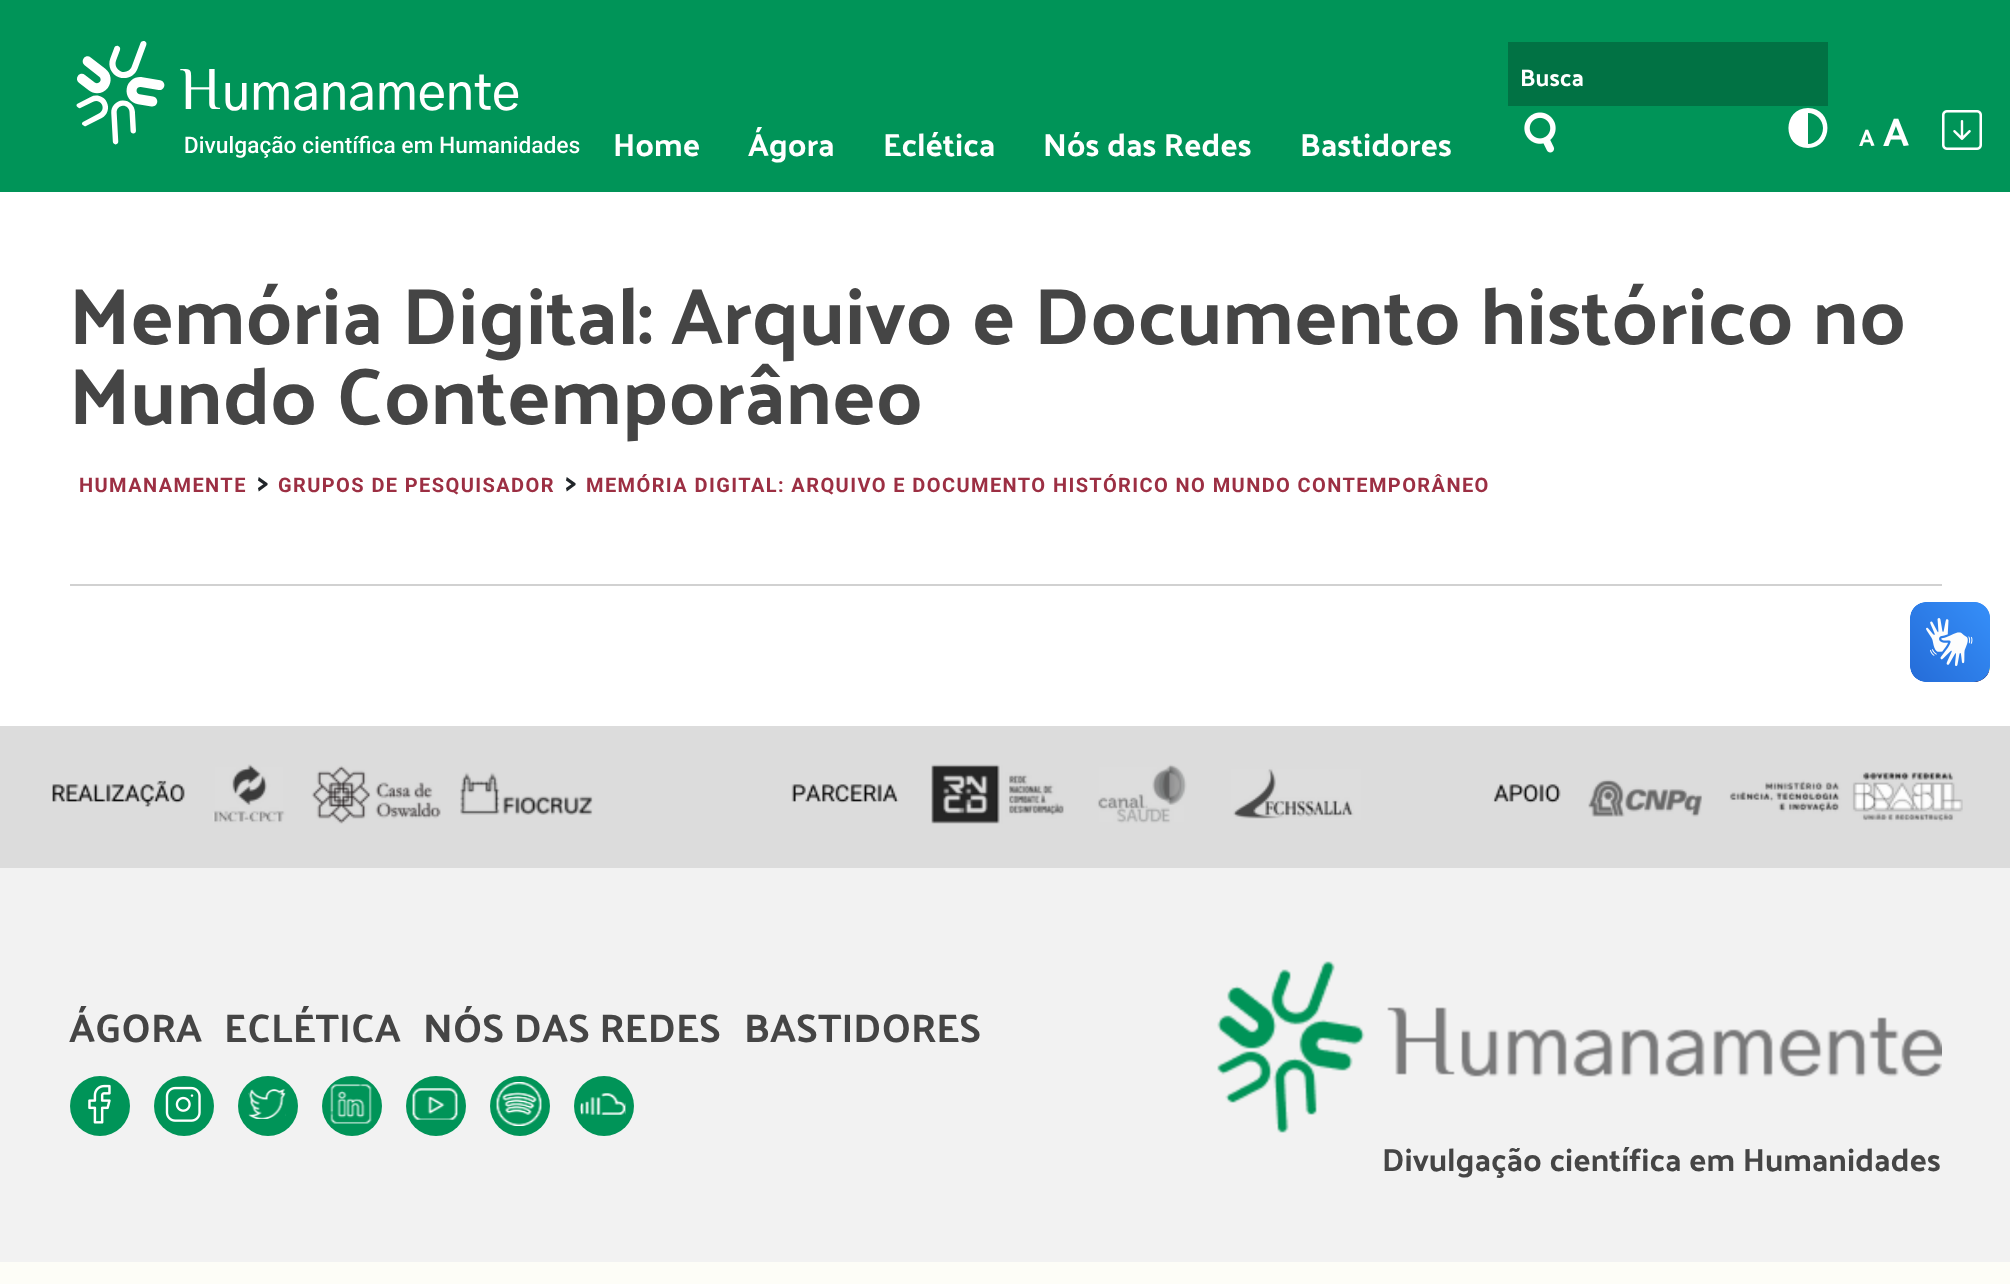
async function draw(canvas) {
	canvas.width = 2010;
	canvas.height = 1284;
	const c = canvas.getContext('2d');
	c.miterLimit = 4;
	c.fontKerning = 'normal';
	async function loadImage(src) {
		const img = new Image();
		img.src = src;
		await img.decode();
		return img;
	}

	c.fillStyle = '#fdfdf7';
	c.fillRect(0, 0, 2010, 1284);
	c.fillStyle = '#009458';
	c.fillRect(0, 0, 2010, 192);
	c.drawImage(await loadImage('img1.png'), 76, 41, 504, 117);
	c.font = '32px Palanquin Dark';
	c.fillStyle = '#fff';
	for (const [text, x, y] of [
		['Home', 613, 156],
		['Ágora', 748, 156],
		['Eclética', 883, 156],
		['Nós das Redes', 1043, 156],
		['Bastidores', 1300, 156],
	]) {
		c.fillText(text, x, y);
	}
	c.fillStyle = '#017244';
	c.fillRect(1508, 42, 320, 64);
	c.font = '24px Palanquin Dark';
	c.fillStyle = '#fff';
	c.fillText('Busca', 1520, 86);
	c.drawImage(await loadImage('img2.png'), 1524, 112, 32, 41);
	c.beginPath();
	c.moveTo(1808, 148);
	c.bezierCurveTo(1782, 148, 1782, 108, 1808, 108);
	c.bezierCurveTo(1834, 108, 1834, 148, 1808, 148);
	c.closePath();
	c.moveTo(1823, 128);
	c.bezierCurveTo(1823, 120, 1816, 113, 1808, 113);
	c.lineTo(1808, 144);
	c.bezierCurveTo(1816, 144, 1823, 137, 1823, 128);
	c.closePath();
	c.fill();
	c.fillText('A', 1859, 146);
	c.font = '40px Palanquin Dark';
	c.fillText('A', 1883, 146);
	c.drawImage(await loadImage('img3.png'), 1942, 110, 40, 40);
	c.fillRect(0, 192, 2010, 534);
	c.font = '80px Palanquin Dark';
	c.fillStyle = '#454545';
	c.fillText('Memória Digital: Arquivo e Documento histórico no', 69, 344);
	c.fillText('Mundo Contemporâneo', 69, 424);
	c.letterSpacing = '1.4px';
	c.font = 'bold 20px Roboto';
	c.fillStyle = '#9c2f43';
	c.fillText('HUMANAMENTE', 79, 492);
	c.letterSpacing = '0px';
	c.font = '32px Palanquin Dark';
	c.fillStyle = '#212529';
	c.fillText('>', 257, 492);
	c.letterSpacing = '1.4px';
	c.font = 'bold 20px Roboto';
	c.fillStyle = '#9c2f43';
	c.fillText('GRUPOS DE PESQUISADOR', 278, 492);
	c.letterSpacing = '0px';
	c.font = '32px Palanquin Dark';
	c.fillStyle = '#212529';
	c.fillText('>', 565, 492);
	c.letterSpacing = '1.4px';
	c.font = 'bold 20px Roboto';
	c.fillStyle = '#9c2f43';
	c.fillText('MEMÓRIA DIGITAL: ARQUIVO E DOCUMENTO HISTÓRICO NO MUNDO CONTEMPORÂNEO', 586, 492);
	c.fillStyle = '#d1d1d1';
	c.fillRect(70, 584, 1872, 2);
	c.drawImage(await loadImage('img4.png'), 1910, 602, 80, 80);
	c.drawImage(await loadImage('img5.png'), 1910, 602, 80, 80);
	c.fillStyle = '#dcdcdc';
	c.fillRect(0, 726, 2010, 142);
	c.drawImage(await loadImage('img6.png'), 52, 764, 1911, 60);
	c.fillStyle = '#f2f2f2';
	c.fillRect(0, 868, 2010, 394);
	c.letterSpacing = '0px';
	c.font = '40px Palanquin Dark';
	c.fillStyle = '#454545';
	for (const [text, x, y] of [
		['ÁGORA', 69, 1042],
		['ECLÉTICA', 224, 1042],
		['NÓS DAS REDES', 423, 1042],
		['BASTIDORES', 744, 1042],
	]) {
		c.fillText(text, x, y);
	}
	c.fillStyle = '#009458';
	c.beginPath();
	c.arc(100, 1106, 30, 0, 2 * Math.PI);
	c.fill();
	c.drawImage(await loadImage('img7.png'), 88, 1084, 23, 40);
	c.beginPath();
	c.arc(184, 1106, 30, 0, 2 * Math.PI);
	c.fill();
	c.drawImage(await loadImage('img8.png'), 165, 1086, 36, 36);
	c.beginPath();
	c.arc(268, 1106, 30, 0, 2 * Math.PI);
	c.fill();
	c.drawImage(await loadImage('img9.png'), 248, 1089, 38, 30);
	c.beginPath();
	c.arc(352, 1106, 30, 0, 2 * Math.PI);
	c.fill();
	c.drawImage(await loadImage('img10.png'), 330, 1084, 42, 40);
	c.beginPath();
	c.arc(436, 1106, 30, 0, 2 * Math.PI);
	c.fill();
	c.drawImage(await loadImage('img11.png'), 412, 1088, 46, 32);
	c.beginPath();
	c.arc(520, 1106, 30, 0, 2 * Math.PI);
	c.fill();
	c.drawImage(await loadImage('img12.png'), 496, 1082, 46, 44);
	c.beginPath();
	c.arc(604, 1106, 30, 0, 2 * Math.PI);
	c.fill();
	c.drawImage(await loadImage('img13.png'), 580, 1093, 46, 22);
	c.drawImage(await loadImage('img14.png'), 1217, 961, 725, 172);
	c.font = '32px Palanquin Dark';
	c.fillStyle = '#454545';
	c.fillText('Divulgação científica em Humanidades', 1382, 1171);
}

draw(document.querySelector('canvas'));
